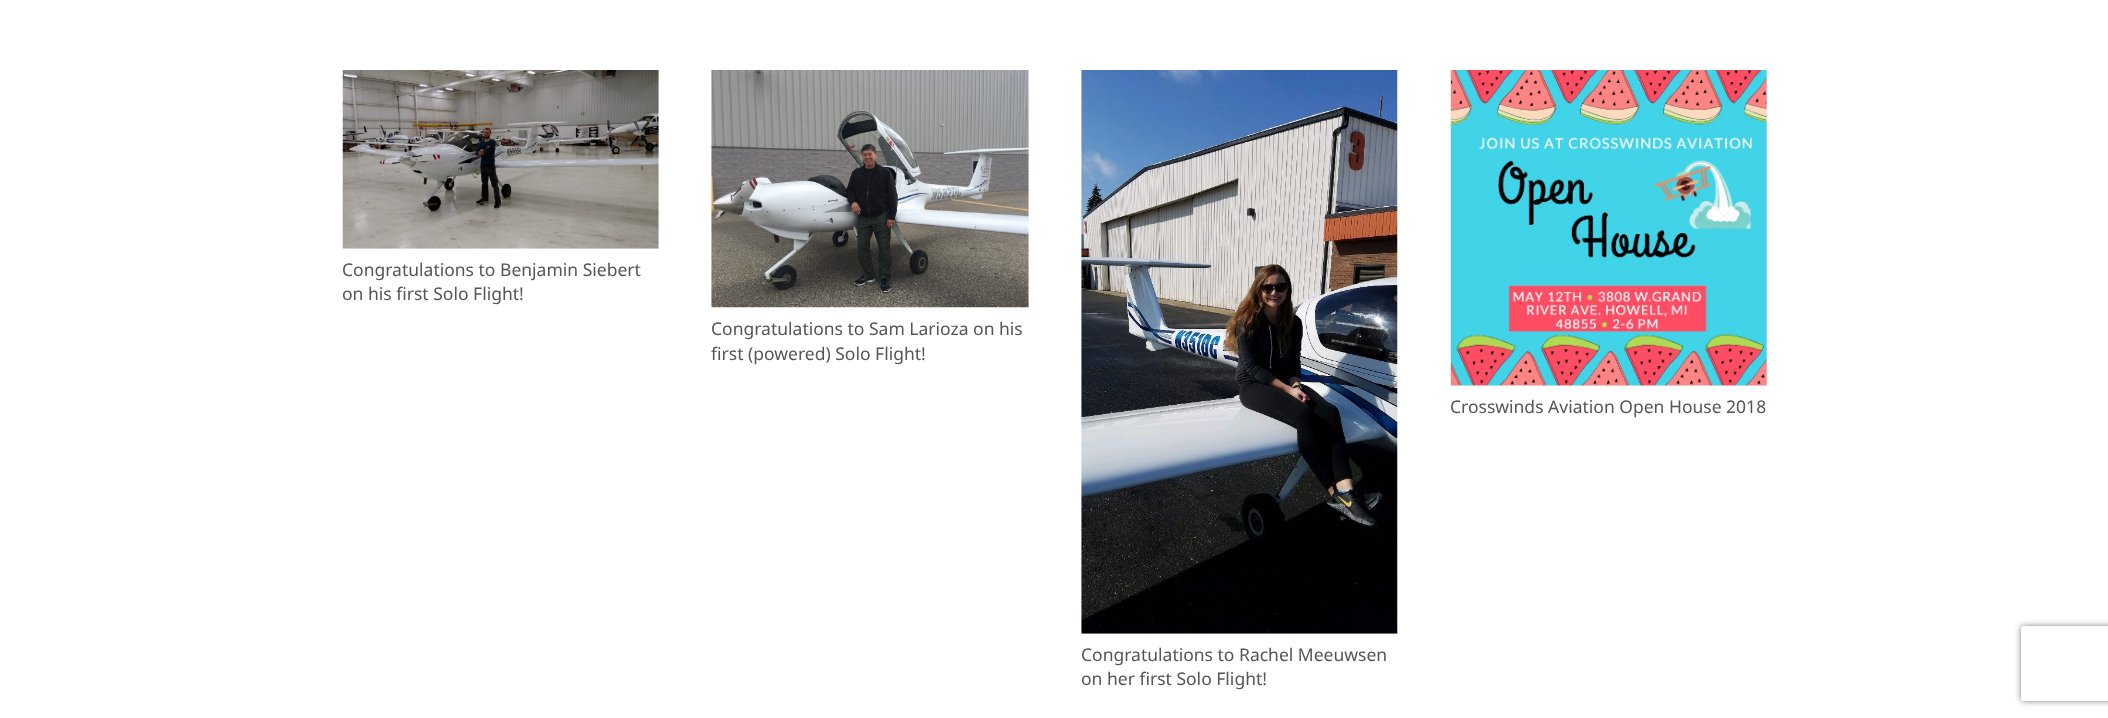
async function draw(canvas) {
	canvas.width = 2108;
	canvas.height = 718;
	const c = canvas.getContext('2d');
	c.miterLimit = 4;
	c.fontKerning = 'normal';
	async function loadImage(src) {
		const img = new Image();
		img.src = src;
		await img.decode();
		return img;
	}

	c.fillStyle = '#fff';
	c.fillRect(0, 0, 2108, 718);
	c.drawImage(await loadImage('img1.png'), 342, 70, 317, 179);
	c.font = '17.5px Noto Sans';
	c.fillStyle = '#555';
	c.fillText('Congratulations to Benjamin Siebert', 342, 276);
	c.fillText('on his first Solo Flight!', 342, 300);
	c.drawImage(await loadImage('img2.png'), 711, 70, 318, 238);
	c.fillText('Congratulations to Sam Larioza on his', 711, 335);
	c.fillText('first (powered) Solo Flight!', 711, 360);
	c.drawImage(await loadImage('img3.png'), 1450, 70, 318, 316);
	c.fillText('Crosswinds Aviation Open House 2018', 1450, 413);
	c.drawImage(await loadImage('img4.png'), 1081, 70, 317, 564);
	c.fillText('Congratulations to Rachel Meeuwsen', 1081, 661);
	c.fillText('on her first Solo Flight!', 1081, 685);
	c.save();
	c.beginPath();
	c.moveTo(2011, 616);
	c.lineTo(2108, 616);
	c.lineTo(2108, 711);
	c.lineTo(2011, 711);
	c.closePath();
	c.moveTo(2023.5, 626);
	c.lineTo(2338.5, 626);
	c.bezierCurveTo(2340, 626, 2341, 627, 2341, 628.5);
	c.lineTo(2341, 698.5);
	c.bezierCurveTo(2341, 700, 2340, 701, 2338.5, 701);
	c.lineTo(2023.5, 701);
	c.bezierCurveTo(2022, 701, 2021, 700, 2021, 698.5);
	c.lineTo(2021, 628.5);
	c.bezierCurveTo(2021, 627, 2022, 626, 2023.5, 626);
	c.closePath();
	c.clip('evenodd');
	c.fillStyle = '#808080';
	c.filter = 'blur(3px)';
	c.beginPath();
	c.roundRect(2021, 626, 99, 75, 2.5);
	c.fill();
	c.filter = 'none';
	c.restore();
}

draw(document.querySelector('canvas'));
